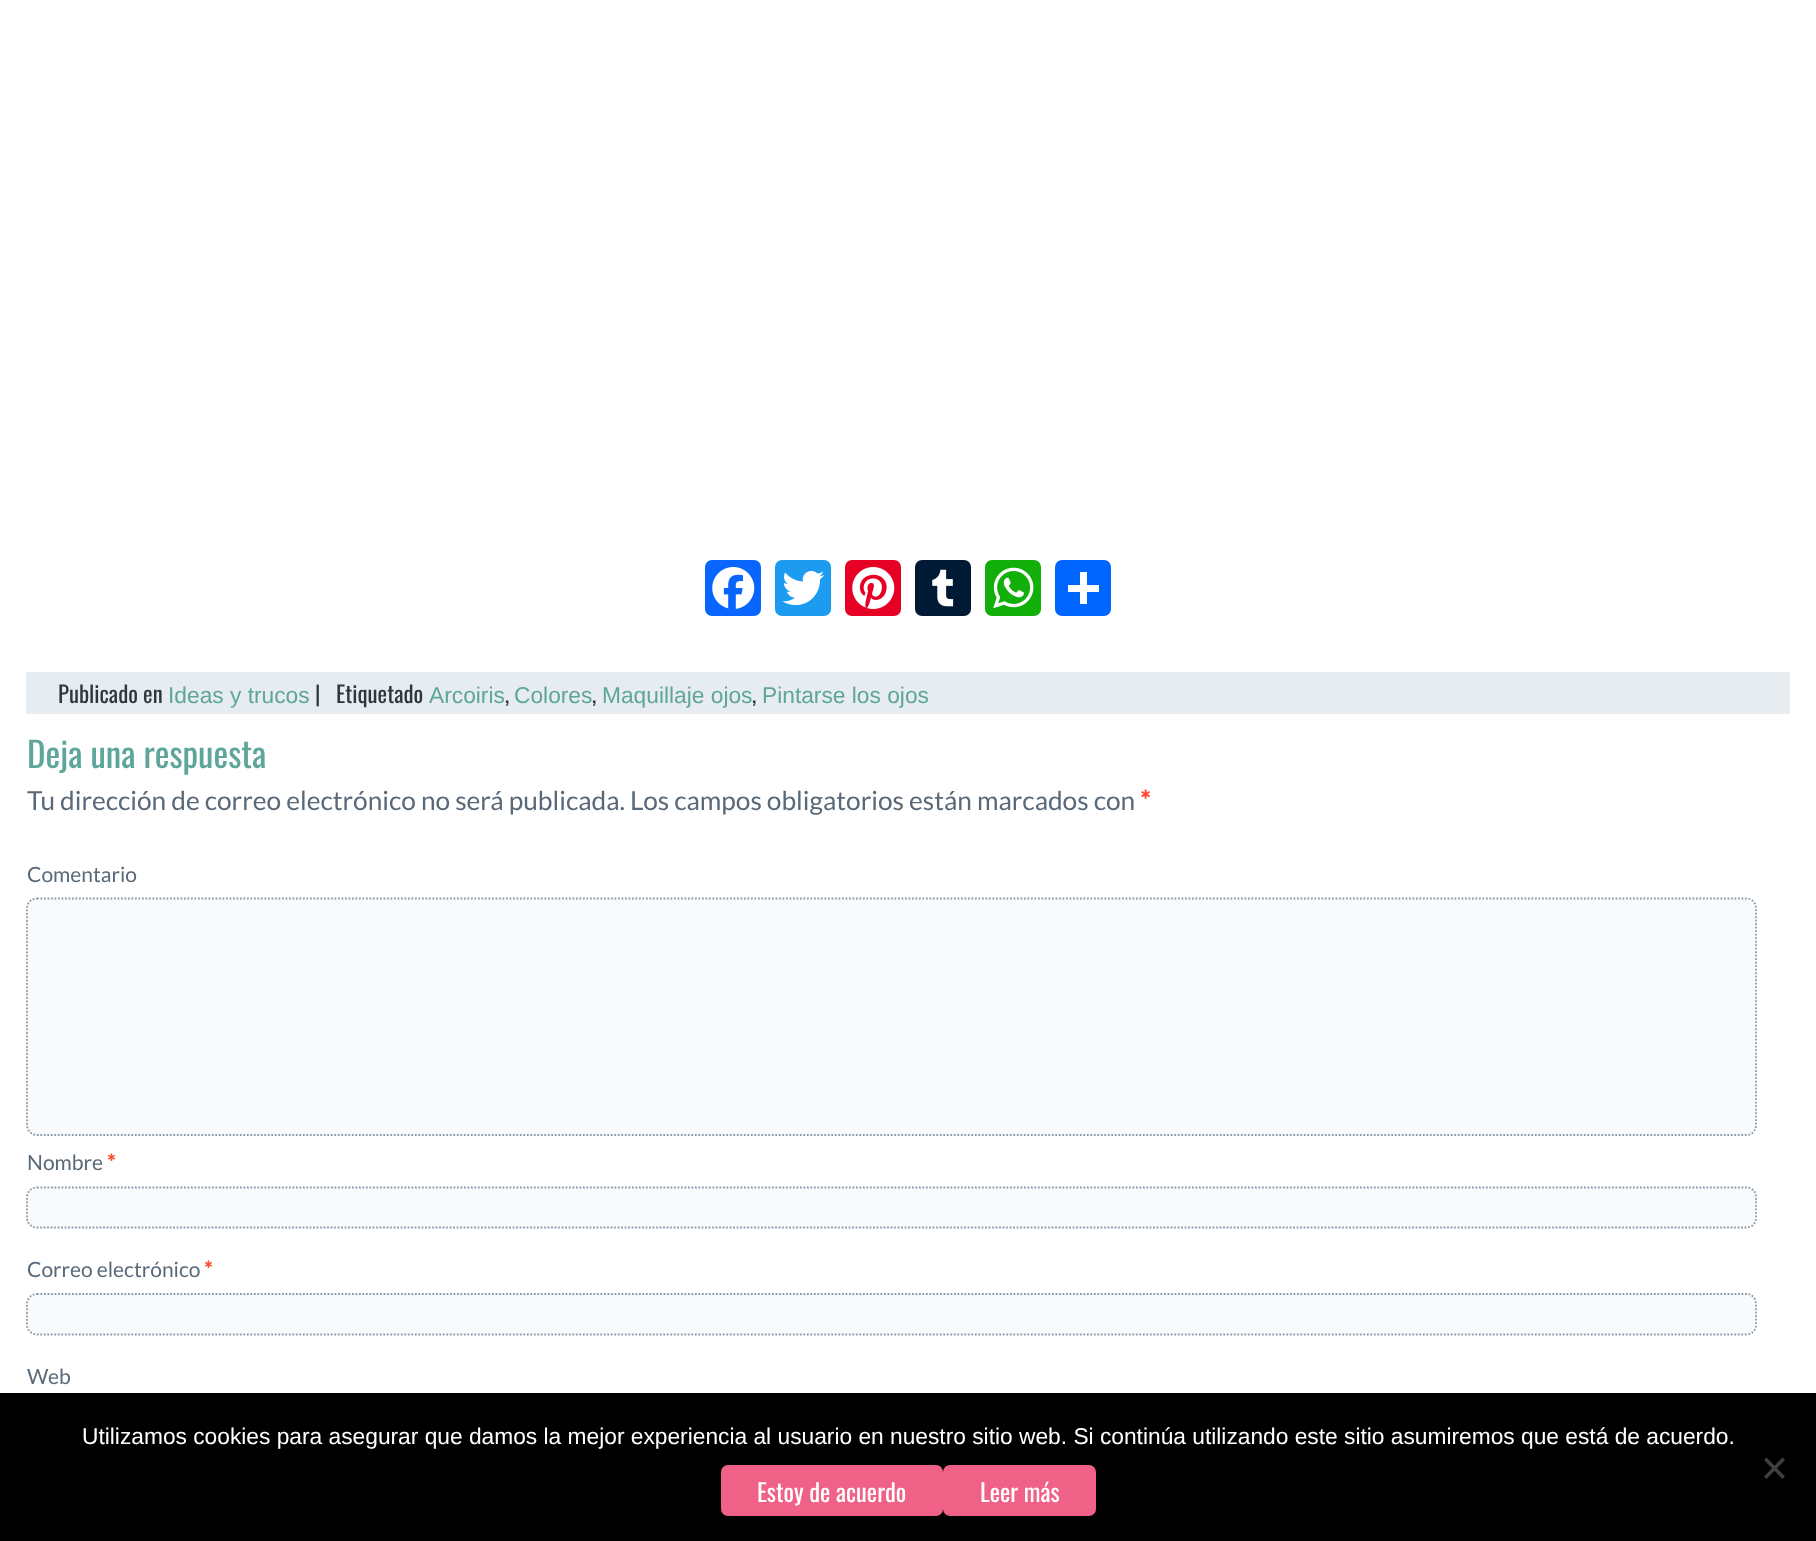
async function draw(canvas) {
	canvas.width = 1816;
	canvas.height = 1541;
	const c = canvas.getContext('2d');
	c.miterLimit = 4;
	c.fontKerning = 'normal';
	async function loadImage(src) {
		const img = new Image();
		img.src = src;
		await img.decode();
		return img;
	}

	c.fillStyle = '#fff';
	c.fillRect(0, 0, 1816, 1541);
	c.fillStyle = '#0866ff';
	c.beginPath();
	c.roundRect(705, 560, 56, 56, 7);
	c.fill();
	c.drawImage(await loadImage('img1.png'), 712, 567, 43, 42);
	c.fillStyle = '#1d9bf0';
	c.beginPath();
	c.roundRect(775, 560, 56, 56, 7);
	c.fill();
	c.drawImage(await loadImage('img2.png'), 782, 570, 43, 36);
	c.fillStyle = '#e60023';
	c.beginPath();
	c.roundRect(845, 560, 56, 56, 7);
	c.fill();
	c.drawImage(await loadImage('img3.png'), 852, 567, 43, 42);
	c.fillStyle = '#001935';
	c.beginPath();
	c.roundRect(915, 560, 56, 56, 7);
	c.fill();
	c.drawImage(await loadImage('img4.png'), 932, 569, 22, 38);
	c.fillStyle = '#12af0a';
	c.beginPath();
	c.roundRect(985, 560, 56, 56, 7);
	c.fill();
	c.drawImage(await loadImage('img5.png'), 993, 567, 41, 42);
	c.fillStyle = '#0166ff';
	c.beginPath();
	c.roundRect(1055, 560, 56, 56, 7);
	c.fill();
	for (const [x, y, w, h, color] of [
		[1080, 572, 7, 32, '#fff'],
		[1068, 585, 31, 7, '#fff'],
		[26, 672, 1764, 42, '#e7ecf1'],
	]) {
		c.fillStyle = color;
		c.fillRect(x, y, w, h);
	}
	c.font = '22.75px Oswald';
	c.fillStyle = '#2e363e';
	c.fillText('Publicado en', 58, 703);
	c.font = '22.75px Liberation Sans';
	c.fillStyle = '#5ea69a';
	c.fillText('Ideas y trucos', 168, 703);
	c.font = '22.75px Oswald';
	c.fillStyle = '#2e363e';
	c.fillText('|', 315, 703);
	c.fillText('Etiquetado', 336, 703);
	c.font = '22.75px Liberation Sans';
	c.fillStyle = '#5ea69a';
	c.fillText('Arcoiris', 429, 703);
	c.font = '22.75px Oswald';
	c.fillStyle = '#2e363e';
	c.fillText(',', 505, 703);
	c.font = '22.75px Liberation Sans';
	c.fillStyle = '#5ea69a';
	c.fillText('Colores', 514, 703);
	c.font = '22.75px Oswald';
	c.fillStyle = '#2e363e';
	c.fillText(',', 592, 703);
	c.font = '22.75px Liberation Sans';
	c.fillStyle = '#5ea69a';
	c.fillText('Maquillaje ojos', 602, 703);
	c.font = '22.75px Oswald';
	c.fillStyle = '#2e363e';
	c.fillText(',', 752, 703);
	c.font = '22.75px Liberation Sans';
	c.fillStyle = '#5ea69a';
	c.fillText('Pintarse los ojos', 762, 703);
	c.font = '35px Oswald';
	c.fillText('Deja una respuesta', 27, 768);
	c.font = '26.25px Lato';
	c.fillStyle = '#596978';
	c.fillText('Tu dirección de correo electrónico no será publicada. Los campos obligatorios están marcados con', 27, 810);
	c.font = 'bold 26.25px Lato';
	c.fillStyle = '#ff4b33';
	c.fillText('*', 1140, 810);
	c.font = '21px Lato';
	c.fillStyle = '#596978';
	c.fillText('Comentario', 27, 882);
	c.fillStyle = '#f9fafb';
	c.beginPath();
	c.roundRect(26, 898, 1731, 238, 11);
	c.fill();
	c.beginPath();
	c.moveTo(37, 898.5);
	c.lineTo(1746.5, 898.5);
	c.bezierCurveTo(1752, 898.5, 1756, 903, 1756, 908);
	c.lineTo(1756, 1125);
	c.bezierCurveTo(1756, 1130.5, 1752, 1135, 1746.5, 1135);
	c.lineTo(37, 1135);
	c.bezierCurveTo(31.5, 1135, 27, 1130.5, 27, 1125);
	c.lineTo(27, 908);
	c.bezierCurveTo(27, 903, 31.5, 898.5, 37, 898.5);
	c.closePath();
	c.strokeStyle = '#8a99a8';
	c.lineWidth = 1.8;
	c.setLineDash([1.75, 1.75]);
	c.stroke();
	c.fillStyle = '#596978';
	c.fillText('Nombre', 27, 1170);
	c.font = 'bold 21px Lato';
	c.fillStyle = '#ff4b33';
	c.fillText('*', 107, 1170);
	c.fillStyle = '#f9fafb';
	c.beginPath();
	c.roundRect(26, 1187, 1731, 42, 11);
	c.fill();
	c.beginPath();
	c.moveTo(37, 1187.5);
	c.lineTo(1746.5, 1187.5);
	c.bezierCurveTo(1752, 1187.5, 1756, 1191.5, 1756, 1197);
	c.lineTo(1756, 1218);
	c.bezierCurveTo(1756, 1223.5, 1752, 1227.5, 1746.5, 1227.5);
	c.lineTo(37, 1227.5);
	c.bezierCurveTo(31.5, 1227.5, 27, 1223.5, 27, 1218);
	c.lineTo(27, 1197);
	c.bezierCurveTo(27, 1191.5, 31.5, 1187.5, 37, 1187.5);
	c.closePath();
	c.stroke();
	c.font = '21px Lato';
	c.fillStyle = '#596978';
	c.fillText('Correo electrónico', 27, 1277);
	c.font = 'bold 21px Lato';
	c.fillStyle = '#ff4b33';
	c.fillText('*', 204, 1277);
	c.fillStyle = '#f9fafb';
	c.beginPath();
	c.roundRect(26, 1293, 1731, 42, 11);
	c.fill();
	c.beginPath();
	c.moveTo(37, 1294);
	c.lineTo(1746.5, 1294);
	c.bezierCurveTo(1752, 1294, 1756, 1298.5, 1756, 1304);
	c.lineTo(1756, 1325);
	c.bezierCurveTo(1756, 1330, 1752, 1334.5, 1746.5, 1334.5);
	c.lineTo(37, 1334.5);
	c.bezierCurveTo(31.5, 1334.5, 27, 1330, 27, 1325);
	c.lineTo(27, 1304);
	c.bezierCurveTo(27, 1298.5, 31.5, 1294, 37, 1294);
	c.closePath();
	c.stroke();
	c.font = '21px Lato';
	c.fillStyle = '#596978';
	c.fillText('Web', 27, 1384);
	c.fillStyle = '#000';
	c.fillRect(0, 1393, 1816, 148);
	c.font = '22.75px Liberation Sans';
	c.fillStyle = '#fff';
	c.fillText('Utilizamos cookies para asegurar que damos la mejor experiencia al usuario en nuestro sitio web. Si continúa utilizando este sitio asumiremos que está de acuerdo.', 82, 1444);
	c.fillStyle = '#404040';
	c.beginPath();
	c.moveTo(1782.5, 1457.5);
	c.lineTo(1785, 1460);
	c.lineTo(1766.5, 1479);
	c.lineTo(1764, 1476.5);
	c.closePath();
	c.fill();
	c.beginPath();
	c.moveTo(1764, 1460);
	c.lineTo(1766.5, 1457.5);
	c.lineTo(1785, 1476.5);
	c.lineTo(1782.5, 1479);
	c.closePath();
	c.fill();
	c.fillStyle = '#ef6187';
	c.beginPath();
	c.roundRect(721, 1465, 222, 51, 7);
	c.fill();
	c.font = '24.5px Oswald';
	c.fillStyle = '#fff';
	c.fillText('Estoy de acuerdo', 757, 1502);
	c.fillStyle = '#ef6187';
	c.beginPath();
	c.roundRect(943, 1465, 153, 51, 7);
	c.fill();
	c.fillStyle = '#fff';
	c.fillText('Leer más', 980, 1502);
}

draw(document.querySelector('canvas'));
